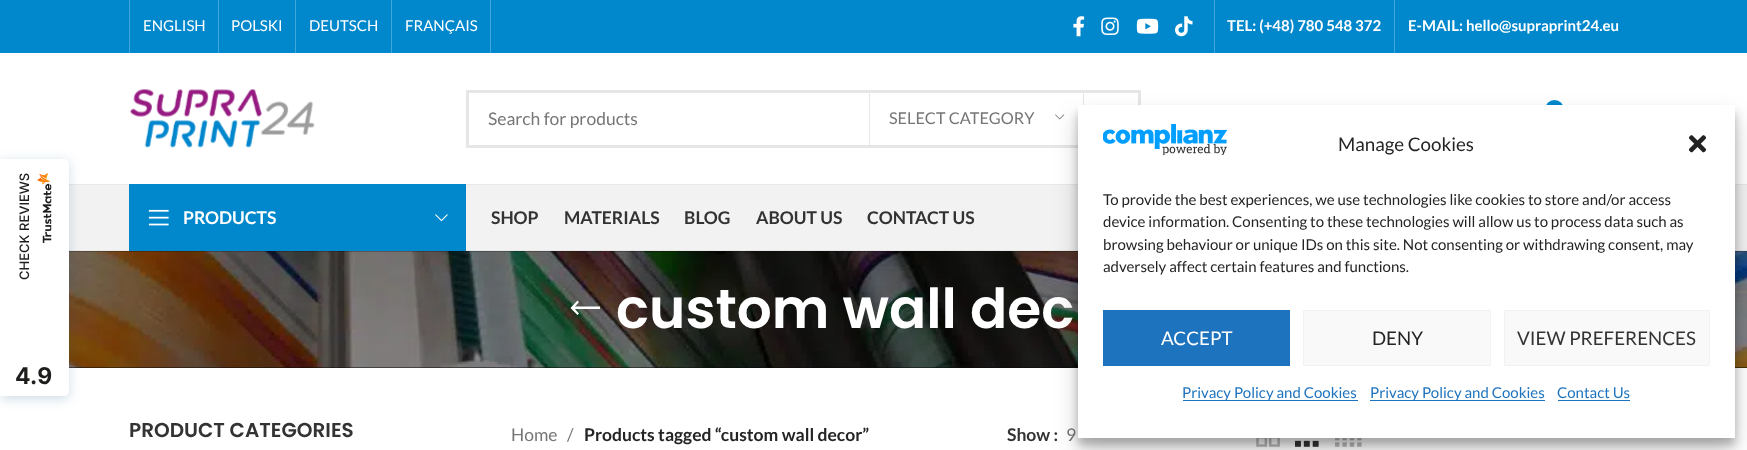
async function draw(canvas) {
	canvas.width = 1747;
	canvas.height = 450;
	const c = canvas.getContext('2d');
	c.miterLimit = 4;
	c.fontKerning = 'normal';
	async function loadImage(src) {
		const img = new Image();
		img.src = src;
		await img.decode();
		return img;
	}

	c.fillStyle = '#fff';
	c.fillRect(0, 0, 1747, 450);
	c.fillStyle = '#0188cc';
	c.fillRect(0, 0, 1747, 53);
	c.fillStyle = '#41a6d9';
	c.fillRect(129, 0, 1, 53);
	c.font = '15px Lato';
	c.fillStyle = '#fff';
	c.fillText('ENGLISH', 143, 31);
	c.fillStyle = '#41a6d9';
	c.fillRect(218, 0, 1, 53);
	c.fillStyle = '#fff';
	c.fillText('POLSKI', 231, 31);
	c.fillStyle = '#41a6d9';
	c.fillRect(295, 0, 1, 53);
	c.fillStyle = '#fff';
	c.fillText('DEUTSCH', 309, 31);
	c.fillStyle = '#41a6d9';
	c.fillRect(391, 0, 1, 53);
	c.fillStyle = '#fff';
	c.fillText('FRANÇAIS', 405, 31);
	c.fillStyle = '#41a6d9';
	c.fillRect(490, 0, 1, 53);
	c.drawImage(await loadImage('img1.png'), 1073, 16, 12, 21);
	c.drawImage(await loadImage('img2.png'), 1101, 17, 18, 18);
	c.drawImage(await loadImage('img3.png'), 1136, 18, 23, 16);
	c.drawImage(await loadImage('img4.png'), 1175, 16, 18, 21);
	c.fillRect(1214, 0, 1, 53);
	c.font = 'bold 15px Lato';
	c.fillStyle = '#fff';
	c.fillText('TEL: (+48) 780 548 372', 1227, 31);
	c.fillStyle = '#41a6d9';
	c.fillRect(1394, 0, 1, 53);
	c.fillStyle = '#fff';
	c.fillText('E-MAIL: hello@supraprint24.eu', 1408, 31);
	c.fillStyle = '#e8e8e8';
	c.fillRect(69, 184, 1678, 1);
	c.drawImage(await loadImage('img5.png'), 130, 89, 185, 59);
	c.strokeStyle = '#e6e6e6';
	c.lineWidth = 3;
	c.strokeRect(467.5, 91.5, 672, 55);
	c.font = '17.5px Lato';
	c.fillStyle = '#767676';
	c.fillText('Search for products', 488, 125);
	c.fillStyle = '#e6e6e6';
	c.fillRect(1083, 93, 1, 12);
	c.fillRect(869, 93, 1, 52);
	c.font = '16.25px Lato';
	c.fillStyle = '#767676';
	c.fillText('SELECT CATEGORY', 889, 124);
	c.drawImage(await loadImage('img6.png'), 1055, 114, 10, 6);
	c.fillStyle = '#0188cc';
	c.beginPath();
	c.arc(1554.5, 109.5, 9.5, 0, 2 * Math.PI);
	c.fill();
	for (const [x, y, w, h, color] of [
		[69, 185, 1678, 65, '#f2f2f2'],
		[69, 250, 1678, 1, '#e8e8e8'],
		[129, 184, 337, 67, '#0188cc'],
	]) {
		c.fillStyle = color;
		c.fillRect(x, y, w, h);
	}
	c.drawImage(await loadImage('img7.png'), 148, 209, 21, 17);
	c.font = 'bold 17.5px Lato';
	c.fillStyle = '#fff';
	c.fillText('PRODUCTS', 183, 224);
	c.drawImage(await loadImage('img8.png'), 435, 214, 13, 8);
	c.fillStyle = '#333';
	for (const [text, x, y] of [
		['SHOP', 491, 224],
		['MATERIALS', 564, 224],
		['BLOG', 684, 224],
		['ABOUT US', 756, 224],
		['CONTACT US', 867, 224],
	]) {
		c.fillText(text, x, y);
	}
	c.fillStyle = '#0a0a0a';
	c.fillRect(69, 251, 1678, 117);
	c.drawImage(await loadImage('img9.png'), 69, 251, 1678, 117);
	c.fillStyle = '#fff';
	c.beginPath();
	c.moveTo(579, 313.5);
	c.lineTo(575, 309);
	c.lineTo(600, 309);
	c.lineTo(600, 306.5);
	c.lineTo(575, 306.5);
	c.lineTo(579, 302);
	c.lineTo(577.5, 300.5);
	c.lineTo(570.5, 308);
	c.lineTo(577.5, 315);
	c.closePath();
	c.fill();
	c.font = '600 55px Poppins';
	c.fillText('custom wall dec', 616, 328);
	c.font = '600 20px Poppins';
	c.fillStyle = '#333';
	c.fillText('PRODUCT CATEGORIES', 129, 437);
	c.font = '17.5px Lato';
	c.fillStyle = '#767676';
	c.fillText('Home', 511, 441);
	c.fillText('/', 567, 441);
	c.font = 'bold 17.5px Lato';
	c.fillStyle = '#242424';
	c.fillText('Products tagged “custom wall decor”', 584, 441);
	c.fillStyle = '#333';
	c.fillText('Show :', 1007, 441);
	c.font = '17.5px Lato';
	c.fillStyle = '#767676';
	c.fillText('9', 1066, 441);
	c.drawImage(await loadImage('img10.png'), 1256, 438, 24, 9);
	c.drawImage(await loadImage('img11.png'), 1295, 440, 24, 7);
	c.drawImage(await loadImage('img12.png'), 1335, 438, 27, 9);
	c.fillStyle = '#0b568033';
	c.filter = 'blur(6px)';
	c.beginPath();
	c.roundRect(0, 161, 69, 238, 5);
	c.fill();
	c.filter = 'none';
	c.fillStyle = '#fff';
	c.beginPath();
	c.roundRect(0, 159, 69, 237, [0, 5, 5, 0]);
	c.fill();
	c.font = '500 13px Inter';
	c.fillStyle = '#1d1d1b';
	c.save();
	c.translate(29, 280);
	c.rotate(-90 * Math.PI / 180);
	c.fillText('CHECK REVIEWS', 0, 0);
	c.restore();
	c.drawImage(await loadImage('img13.png'), 37, 173, 15, 70);
	c.font = 'bold 23px Inter';
	c.fillText('4.9', 15, 384);
	c.fillStyle = '#0000003b';
	c.filter = 'blur(4px)';
	c.beginPath();
	c.rect(1078, 113, 657, 332);
	c.fill();
	c.filter = 'none';
	c.fillStyle = '#00000030';
	c.filter = 'blur(12.5px)';
	c.beginPath();
	c.rect(1078, 118, 657, 332);
	c.fill();
	c.filter = 'none';
	c.fillStyle = '#fff';
	c.fillRect(1078, 105, 657, 333);
	c.drawImage(await loadImage('img14.png'), 1103, 124, 125, 31);
	c.font = '18.75px Lato';
	c.fillStyle = '#242424';
	c.fillText('Manage Cookies', 1338, 151);
	c.drawImage(await loadImage('img15.png'), 1688, 135, 19, 18);
	c.font = '15px Lato';
	for (const [text, x, y] of [
		['To provide the best experiences, we use technologies like cookies to store and/or access', 1103, 205],
		['device information. Consenting to these technologies will allow us to process data such as', 1103, 227],
		['browsing behaviour or unique IDs on this site. Not consenting or withdrawing consent, may', 1103, 250],
		['adversely affect certain features and functions.', 1103, 272],
	]) {
		c.fillText(text, x, y);
	}
	c.fillStyle = '#1e73be';
	c.fillRect(1103, 310, 187, 56);
	c.font = '18.75px Lato';
	c.fillStyle = '#fff';
	c.fillText('ACCEPT', 1161, 345);
	c.fillStyle = '#f9f9f9';
	c.beginPath();
	c.rect(1303.5, 310.5, 187, 55);
	c.fill();
	c.strokeStyle = '#f2f2f2';
	c.lineWidth = 1;
	c.stroke();
	c.fillStyle = '#242424';
	c.fillText('DENY', 1372, 345);
	c.fillStyle = '#f9f9f9';
	c.beginPath();
	c.rect(1504.5, 310.5, 205, 55);
	c.fill();
	c.stroke();
	c.fillStyle = '#333';
	c.fillText('VIEW PREFERENCES', 1517, 345);
	c.fillStyle = '#1e73be';
	c.fillRect(1183, 400, 175, 1);
	c.font = '15px Lato';
	c.fillText('Privacy Policy and Cookies', 1182, 398);
	c.fillRect(1370, 400, 175, 1);
	c.fillText('Privacy Policy and Cookies', 1370, 398);
	c.fillText('Contact Us', 1557, 398);
	c.fillRect(1558, 400, 72, 1);
}

draw(document.querySelector('canvas'));
